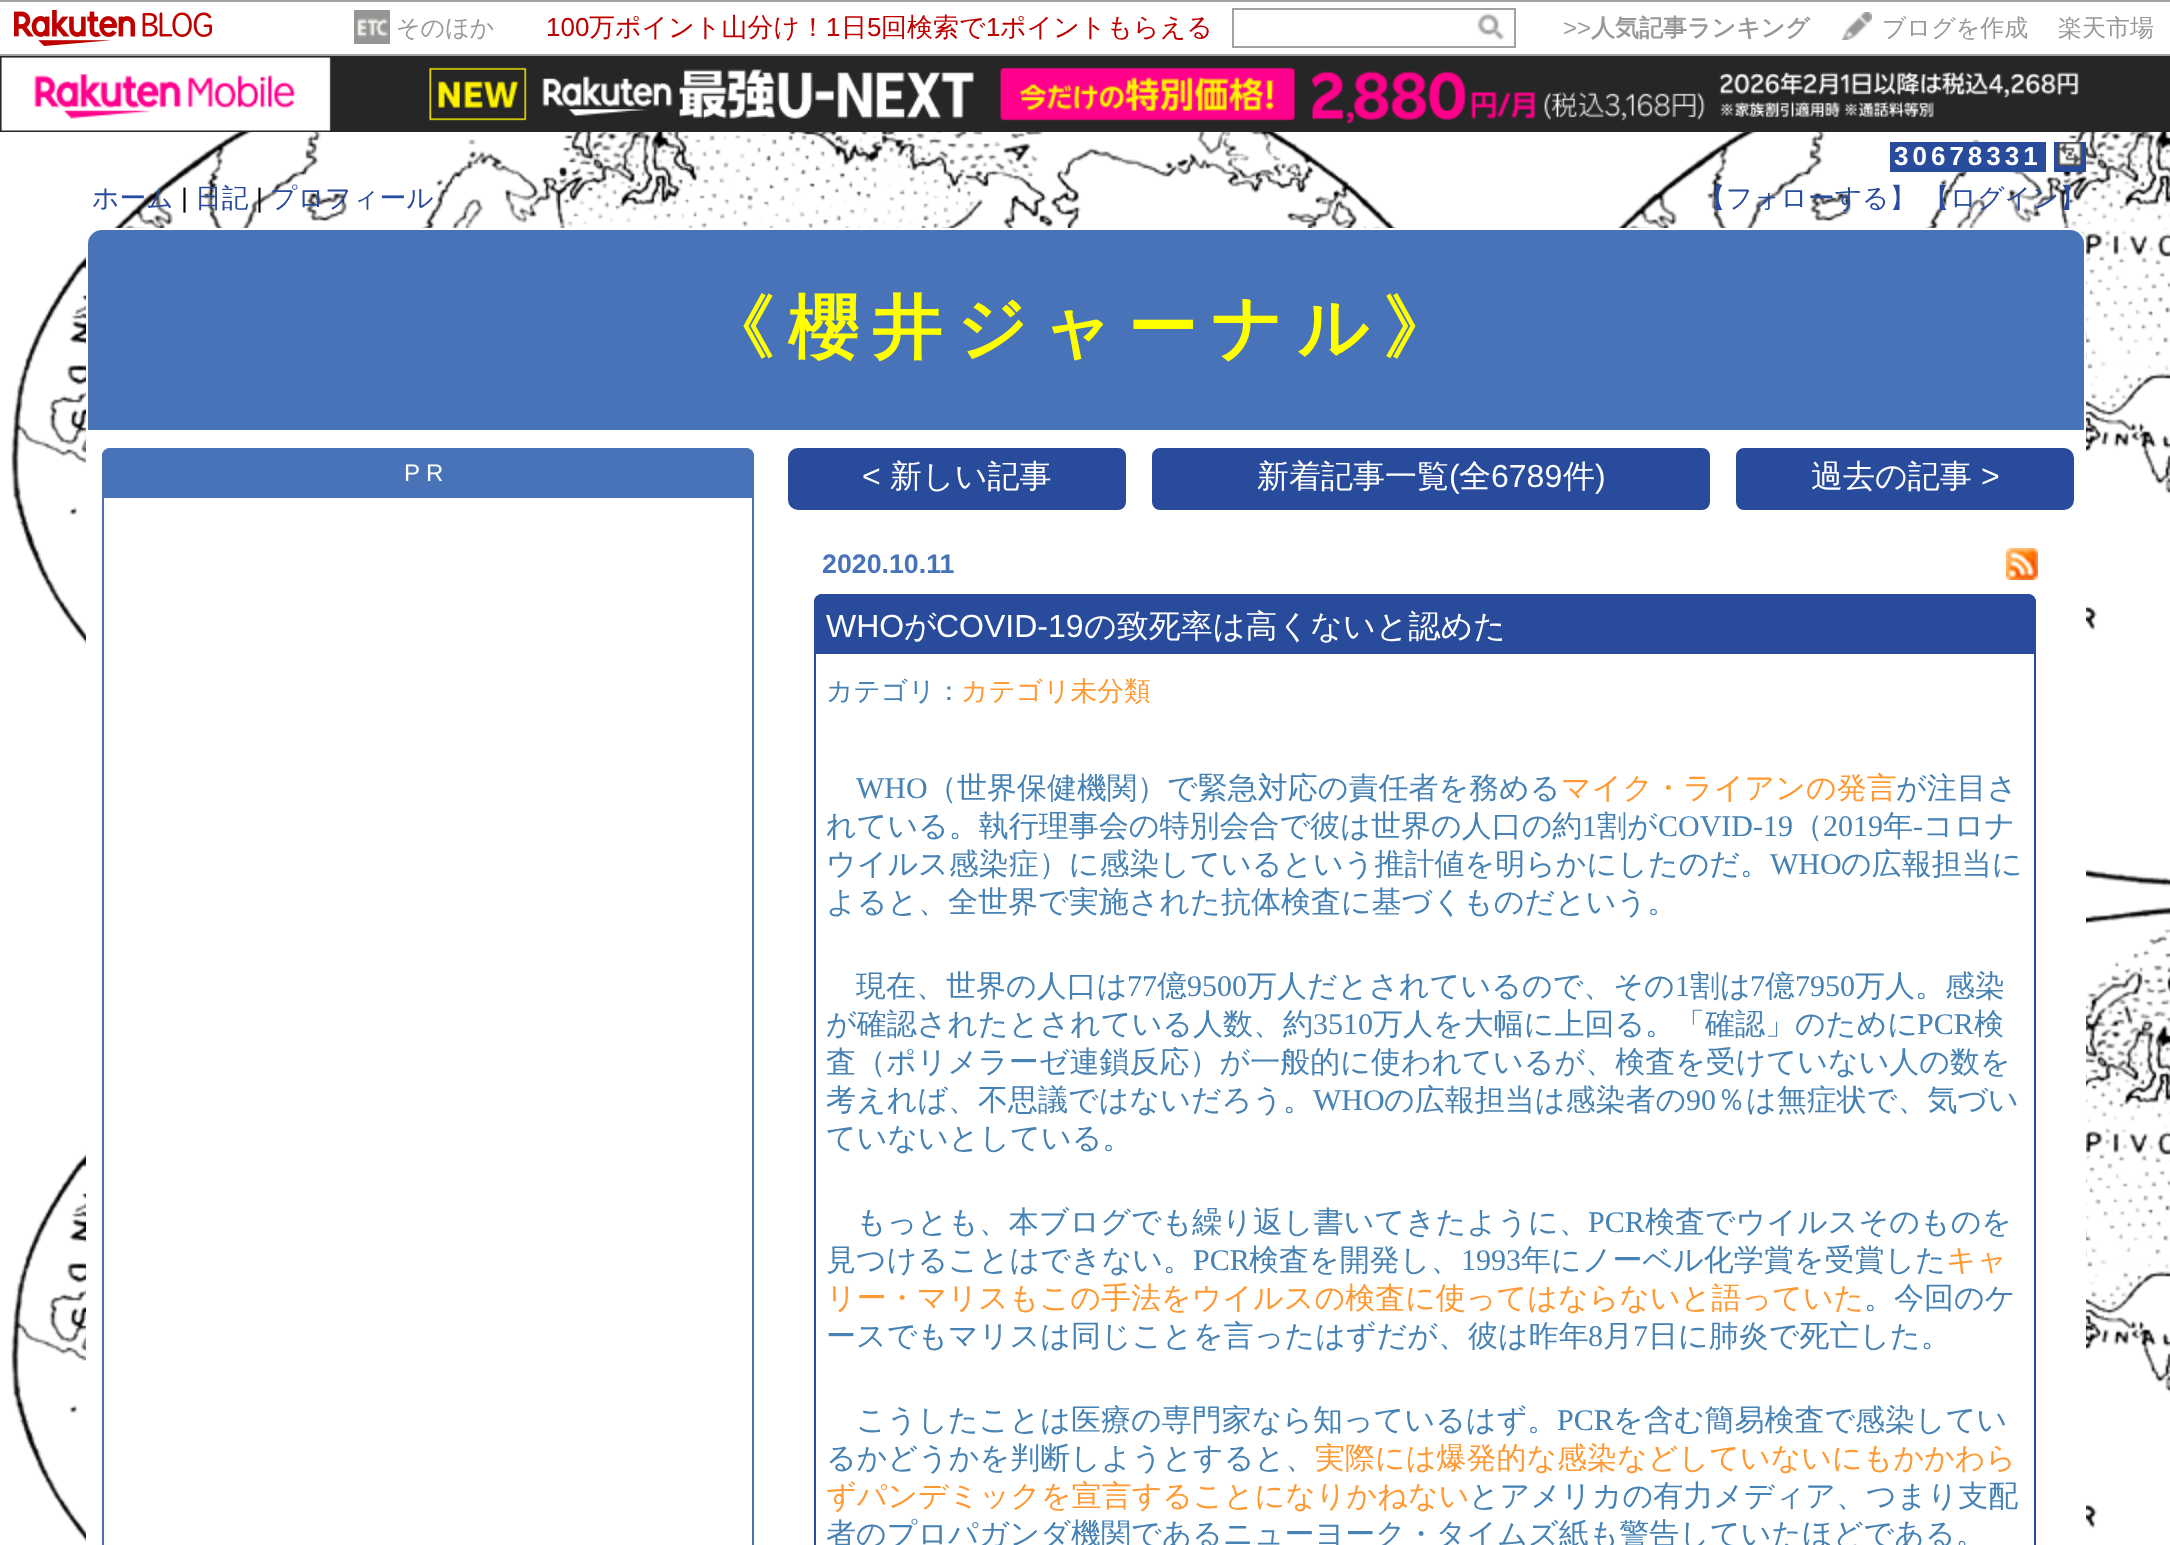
async function draw(canvas) {
	canvas.width = 2170;
	canvas.height = 1545;
	const c = canvas.getContext('2d');
	c.miterLimit = 4;
	c.fontKerning = 'normal';
	async function loadImage(src) {
		const img = new Image();
		img.src = src;
		await img.decode();
		return img;
	}

	c.fillStyle = '#fff';
	c.fillRect(0, 0, 2170, 1545);
	c.drawImage(await loadImage('img1.png'), 11, 132, 2159, 1413);
	c.fillStyle = '#a1a1a1';
	c.fillRect(0, 0, 2170, 2);
	c.fillRect(0, 54, 2170, 2);
	c.drawImage(await loadImage('img2.png'), 14, 10, 198, 36);
	c.drawImage(await loadImage('img3.png'), 354, 10, 36, 34);
	c.font = '500 24px WenQuanYi Zen Hei';
	c.fillStyle = '#999';
	c.fillText('そのほか', 396, 36);
	c.font = '26px Liberation Sans';
	c.fillStyle = '#bf0000';
	c.fillText('100', 546, 36);
	c.font = '500 26px WenQuanYi Zen Hei';
	c.fillText('万ポイント山分け！', 589, 36);
	c.font = '26px Liberation Sans';
	c.fillText('1', 826, 36);
	c.font = '500 26px WenQuanYi Zen Hei';
	c.fillText('日', 841, 36);
	c.font = '26px Liberation Sans';
	c.fillText('5', 867, 36);
	c.font = '500 26px WenQuanYi Zen Hei';
	c.fillText('回検索で', 881, 36);
	c.font = '26px Liberation Sans';
	c.fillText('1', 986, 36);
	c.font = '500 26px WenQuanYi Zen Hei';
	c.fillText('ポイントもらえる', 1000, 36);
	c.strokeStyle = '#a1a1a1';
	c.lineWidth = 2;
	c.strokeRect(1233, 9, 282, 38);
	c.drawImage(await loadImage('img4.png'), 1477, 13, 28, 28);
	c.font = '24px Liberation Sans';
	c.fillStyle = '#999';
	c.fillText('>>', 1563, 36);
	c.font = 'bold 24px WenQuanYi Zen Hei';
	c.fillText('人気記事ランキング', 1591, 36);
	c.drawImage(await loadImage('img5.png'), 1841, 12, 31, 28);
	c.font = '500 24px WenQuanYi Zen Hei';
	c.fillText('ブログを作成', 1882, 36);
	c.fillText('楽天市場', 2058, 36);
	c.drawImage(await loadImage('img6.png'), 0, 56, 2170, 76);
	c.fillStyle = '#284b9b';
	c.fillRect(2054, 142, 32, 30);
	c.fillRect(1890, 142, 156, 30);
	c.letterSpacing = '4px';
	c.font = 'bold 26px Liberation Sans';
	c.fillStyle = '#fff';
	c.fillText('30678331', 1894, 165);
	c.drawImage(await loadImage('img7.png'), 2058, 142, 24, 24);
	c.letterSpacing = '0px';
	c.font = '500 26.75px WenQuanYi Zen Hei';
	c.fillStyle = '#284b9b';
	c.fillText('ホーム', 92, 207);
	c.font = '26.75px Liberation Sans';
	c.fillStyle = '#000';
	c.fillText('|', 181, 207);
	c.font = '500 26.75px WenQuanYi Zen Hei';
	c.fillStyle = '#284b9b';
	c.fillText('日記', 195, 207);
	c.font = '26.75px Liberation Sans';
	c.fillStyle = '#000';
	c.fillText('|', 256, 207);
	c.font = '500 26.75px WenQuanYi Zen Hei';
	c.fillStyle = '#284b9b';
	for (const [text, x, y] of [
		['プロフィール', 270, 207],
		['【フォローする】', 1699, 207],
		['【ログイン】', 1923, 207],
	]) {
		c.fillText(text, x, y);
	}
	c.fillStyle = '#4873b9';
	c.beginPath();
	c.roundRect(87, 229, 1998, 202, [15, 15, 0, 0]);
	c.fill();
	c.strokeStyle = '#fff';
	c.stroke();
	c.letterSpacing = '14px';
	c.font = 'bold 70px WenQuanYi Zen Hei';
	c.fillStyle = '#ff0';
	c.fillText('《櫻井ジャーナル》', 704, 352);
	c.fillStyle = '#fff';
	c.fillRect(86, 432, 2000, 1113);
	c.fillStyle = '#4873b9';
	c.beginPath();
	c.roundRect(102, 448, 652, 50, [8, 8, 0, 0]);
	c.fill();
	c.beginPath();
	c.moveTo(110, 448);
	c.lineTo(746, 448);
	c.bezierCurveTo(750, 448, 754, 452, 754, 456);
	c.lineTo(754, 498);
	c.lineTo(102, 498);
	c.lineTo(102, 456);
	c.bezierCurveTo(102, 452, 106, 448, 110, 448);
	c.closePath();
	c.moveTo(110, 450);
	c.lineTo(746, 450);
	c.bezierCurveTo(749, 450, 752, 453, 752, 456);
	c.lineTo(752, 498);
	c.lineTo(104, 498);
	c.lineTo(104, 456);
	c.bezierCurveTo(104, 453, 107, 450, 110, 450);
	c.closePath();
	c.fill('evenodd');
	c.letterSpacing = '6px';
	c.font = '24px Liberation Sans';
	c.fillStyle = '#fff';
	c.fillText('PR', 404, 481);
	c.fillStyle = '#4873b9';
	c.beginPath();
	c.moveTo(102, 498);
	c.lineTo(754, 498);
	c.lineTo(754, 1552);
	c.bezierCurveTo(754, 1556, 750, 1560, 746, 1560);
	c.lineTo(110, 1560);
	c.bezierCurveTo(106, 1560, 102, 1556, 102, 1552);
	c.closePath();
	c.moveTo(104, 498);
	c.lineTo(752, 498);
	c.lineTo(752, 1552);
	c.bezierCurveTo(752, 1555, 749, 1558, 746, 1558);
	c.lineTo(110, 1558);
	c.bezierCurveTo(107, 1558, 104, 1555, 104, 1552);
	c.closePath();
	c.fill('evenodd');
	c.fillStyle = '#284b9b';
	c.beginPath();
	c.roundRect(789, 449, 336, 60, [9, 7, 7, 9]);
	c.fill();
	c.strokeStyle = '#284b9b';
	c.stroke();
	c.letterSpacing = '0px';
	c.font = '32px Liberation Sans';
	c.fillStyle = '#fff';
	c.fillText('<', 862, 487);
	c.font = '500 32px WenQuanYi Zen Hei';
	c.fillText('新しい記事', 890, 487);
	c.fillStyle = '#284b9b';
	c.beginPath();
	c.roundRect(1153, 449, 556, 60, 7);
	c.fill();
	c.stroke();
	c.fillStyle = '#fff';
	c.fillText('新着記事一覧', 1257, 487);
	c.font = '32px Liberation Sans';
	c.fillText('(', 1449, 487);
	c.font = '500 32px WenQuanYi Zen Hei';
	c.fillText('全', 1459, 487);
	c.font = '32px Liberation Sans';
	c.fillText('6789', 1491, 487);
	c.font = '500 32px WenQuanYi Zen Hei';
	c.fillText('件', 1563, 487);
	c.font = '32px Liberation Sans';
	c.fillText(')', 1595, 487);
	c.fillStyle = '#284b9b';
	c.beginPath();
	c.roundRect(1737, 449, 336, 60, [7, 9, 9, 7]);
	c.fill();
	c.stroke();
	c.font = '500 32px WenQuanYi Zen Hei';
	c.fillStyle = '#fff';
	c.fillText('過去の記事', 1811, 487);
	c.font = '32px Liberation Sans';
	c.fillText('>', 1981, 487);
	c.font = 'bold 26.75px Liberation Sans';
	c.fillStyle = '#4873b9';
	c.fillText('2020.10.11', 822, 573);
	c.drawImage(await loadImage('img8.png'), 2006, 548, 32, 32);
	c.fillStyle = '#284b9b';
	c.beginPath();
	c.roundRect(814, 594, 1222, 60, [8, 8, 0, 0]);
	c.fill();
	c.beginPath();
	c.moveTo(822, 594);
	c.lineTo(2028, 594);
	c.bezierCurveTo(2032, 594, 2036, 598, 2036, 602);
	c.lineTo(2036, 654);
	c.lineTo(814, 654);
	c.lineTo(814, 602);
	c.bezierCurveTo(814, 598, 818, 594, 822, 594);
	c.closePath();
	c.moveTo(822, 596);
	c.lineTo(2028, 596);
	c.bezierCurveTo(2031, 596, 2034, 599, 2034, 602);
	c.lineTo(2034, 654);
	c.lineTo(816, 654);
	c.lineTo(816, 602);
	c.bezierCurveTo(816, 599, 819, 596, 822, 596);
	c.closePath();
	c.fill('evenodd');
	c.font = '32px Liberation Sans';
	c.fillStyle = '#fff';
	c.fillText('WHO', 826, 637);
	c.font = '500 32px WenQuanYi Zen Hei';
	c.fillText('が', 904, 637);
	c.font = '32px Liberation Sans';
	c.fillText('COVID-19', 936, 637);
	c.font = '500 32px WenQuanYi Zen Hei';
	c.fillText('の致死率は高くないと認めた', 1084, 637);
	c.fillStyle = '#284b9b';
	c.beginPath();
	c.moveTo(814, 654);
	c.lineTo(2036, 654);
	c.lineTo(2036, 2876);
	c.bezierCurveTo(2036, 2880, 2032, 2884, 2028, 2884);
	c.lineTo(822, 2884);
	c.bezierCurveTo(818, 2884, 814, 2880, 814, 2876);
	c.closePath();
	c.moveTo(816, 654);
	c.lineTo(2034, 654);
	c.lineTo(2034, 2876);
	c.bezierCurveTo(2034, 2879, 2031, 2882, 2028, 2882);
	c.lineTo(822, 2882);
	c.bezierCurveTo(819, 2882, 816, 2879, 816, 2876);
	c.closePath();
	c.fill('evenodd');
	c.font = '500 26.75px WenQuanYi Zen Hei';
	c.fillStyle = '#4682b4';
	c.fillText('カテゴリ：', 826, 700);
	c.fillStyle = '#f93';
	c.fillText('カテゴリ未分類', 961, 700);
	c.font = '30px Liberation Serif';
	c.fillStyle = '#4682b4';
	c.fillText('WHO', 856, 798);
	c.font = '500 30px WenQuanYi Zen Hei';
	c.fillText('（世界保健機関）で緊急対応の責任者を務める', 927, 798);
	c.fillStyle = '#f93';
	c.fillText('マイク・ライアンの発言', 1561, 798);
	c.fillStyle = '#4682b4';
	c.fillText('が注目さ', 1896, 798);
	c.fillText('れている。執行理事会の特別会合で彼は世界の人口の約', 826, 836);
	c.font = '30px Liberation Serif';
	c.fillText('1', 1582, 836);
	c.font = '500 30px WenQuanYi Zen Hei';
	c.fillText('割が', 1597, 836);
	c.font = '30px Liberation Serif';
	c.fillText('COVID-19', 1658, 836);
	c.font = '500 30px WenQuanYi Zen Hei';
	c.fillText('（', 1793, 836);
	c.font = '30px Liberation Serif';
	c.fillText('2019', 1823, 836);
	c.font = '500 30px WenQuanYi Zen Hei';
	c.fillText('年', 1883, 836);
	c.font = '30px Liberation Serif';
	c.fillText('-', 1913, 836);
	c.font = '500 30px WenQuanYi Zen Hei';
	c.fillText('コロナ', 1923, 836);
	c.fillText('ウイルス感染症）に感染しているという推計値を明らかにしたのだ。', 826, 874);
	c.font = '30px Liberation Serif';
	c.fillText('WHO', 1770, 874);
	c.font = '500 30px WenQuanYi Zen Hei';
	for (const [text, x, y] of [
		['の広報担当に', 1841, 874],
		['よると、全世界で実施された抗体検査に基づくものだという。', 826, 912],
		['現在、世界の人口は', 856, 996],
	]) {
		c.fillText(text, x, y);
	}
	c.font = '30px Liberation Serif';
	c.fillText('77', 1127, 996);
	c.font = '500 30px WenQuanYi Zen Hei';
	c.fillText('億', 1157, 996);
	c.font = '30px Liberation Serif';
	c.fillText('9500', 1187, 996);
	c.font = '500 30px WenQuanYi Zen Hei';
	c.fillText('万人だとされているので、その', 1247, 996);
	c.font = '30px Liberation Serif';
	c.fillText('1', 1675, 996);
	c.font = '500 30px WenQuanYi Zen Hei';
	c.fillText('割は', 1690, 996);
	c.font = '30px Liberation Serif';
	c.fillText('7', 1750, 996);
	c.font = '500 30px WenQuanYi Zen Hei';
	c.fillText('億', 1765, 996);
	c.font = '30px Liberation Serif';
	c.fillText('7950', 1795, 996);
	c.font = '500 30px WenQuanYi Zen Hei';
	c.fillText('万人。感染', 1855, 996);
	c.fillText('が確認されたとされている人数、約', 826, 1034);
	c.font = '30px Liberation Serif';
	c.fillText('3510', 1313, 1034);
	c.font = '500 30px WenQuanYi Zen Hei';
	c.fillText('万人を大幅に上回る。「確認」のために', 1373, 1034);
	c.font = '30px Liberation Serif';
	c.fillText('PCR', 1917, 1034);
	c.font = '500 30px WenQuanYi Zen Hei';
	for (const [text, x, y] of [
		['検', 1974, 1034],
		['査（ポリメラーゼ連鎖反応）が一般的に使われているが、検査を受けていない人の数を', 826, 1072],
		['考えれば、不思議ではないだろう。', 826, 1110],
	]) {
		c.fillText(text, x, y);
	}
	c.font = '30px Liberation Serif';
	c.fillText('WHO', 1313, 1110);
	c.font = '500 30px WenQuanYi Zen Hei';
	c.fillText('の広報担当は感染者の', 1384, 1110);
	c.font = '30px Liberation Serif';
	c.fillText('90', 1686, 1110);
	c.font = '500 30px WenQuanYi Zen Hei';
	for (const [text, x, y] of [
		['％は無症状で、気づい', 1716, 1110],
		['ていないとしている。', 826, 1148],
		['もっとも、本ブログでも繰り返し書いてきたように、', 856, 1232],
	]) {
		c.fillText(text, x, y);
	}
	c.font = '30px Liberation Serif';
	c.fillText('PCR', 1588, 1232);
	c.font = '500 30px WenQuanYi Zen Hei';
	c.fillText('検査でウイルスそのものを', 1645, 1232);
	c.fillText('見つけることはできない。', 826, 1270);
	c.font = '30px Liberation Serif';
	c.fillText('PCR', 1193, 1270);
	c.font = '500 30px WenQuanYi Zen Hei';
	c.fillText('検査を開発し、', 1249, 1270);
	c.font = '30px Liberation Serif';
	c.fillText('1993', 1461, 1270);
	c.font = '500 30px WenQuanYi Zen Hei';
	c.fillText('年にノーベル化学賞を受賞した', 1521, 1270);
	c.fillStyle = '#f93';
	c.fillText('キャ', 1946, 1270);
	c.fillText('リー・マリスもこの手法をウイルスの検査に使ってはならないと語っていた', 826, 1308);
	c.fillStyle = '#4682b4';
	c.fillText('。今回のケ', 1864, 1308);
	c.fillText('ースでもマリスは同じことを言ったはずだが、彼は昨年', 826, 1346);
	c.font = '30px Liberation Serif';
	c.fillText('8', 1588, 1346);
	c.font = '500 30px WenQuanYi Zen Hei';
	c.fillText('月', 1603, 1346);
	c.font = '30px Liberation Serif';
	c.fillText('7', 1633, 1346);
	c.font = '500 30px WenQuanYi Zen Hei';
	c.fillText('日に肺炎で死亡した。', 1648, 1346);
	c.fillText('こうしたことは医療の専門家なら知っているはず。', 856, 1430);
	c.font = '30px Liberation Serif';
	c.fillText('PCR', 1557, 1430);
	c.font = '500 30px WenQuanYi Zen Hei';
	c.fillText('を含む簡易検査で感染してい', 1613, 1430);
	c.fillText('るかどうかを判断しようとすると、', 826, 1468);
	c.fillStyle = '#f93';
	c.fillText('実際には爆発的な感染などしていないにもかかわら', 1315, 1468);
	c.fillText('ずパンデミックを宣言することになりかねない', 826, 1506);
	c.fillStyle = '#4682b4';
	c.fillText('とアメリカの有力メディア、つまり支配', 1469, 1506);
	c.fillText('者のプロパガンダ機関であるニューヨーク・タイムズ紙も警告していたほどである。', 826, 1544);
}

draw(document.querySelector('canvas'));
